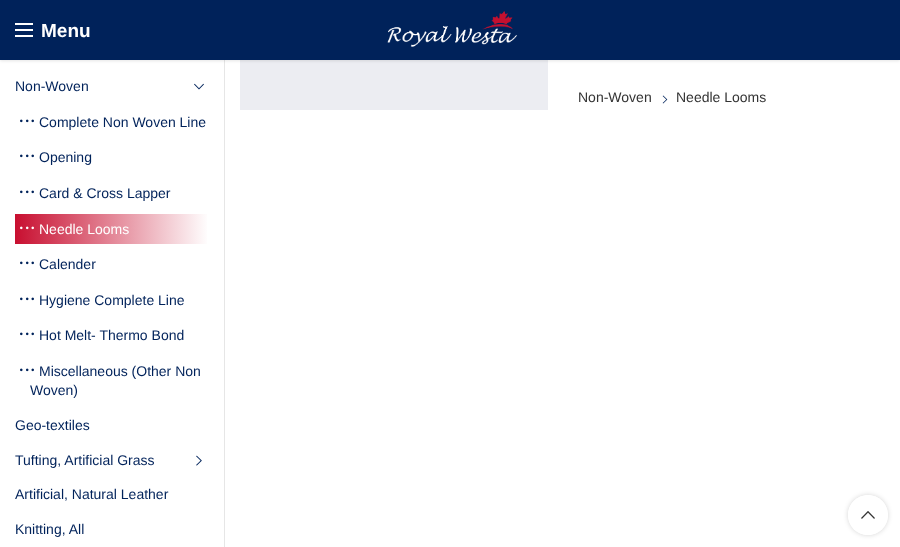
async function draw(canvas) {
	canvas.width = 900;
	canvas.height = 547;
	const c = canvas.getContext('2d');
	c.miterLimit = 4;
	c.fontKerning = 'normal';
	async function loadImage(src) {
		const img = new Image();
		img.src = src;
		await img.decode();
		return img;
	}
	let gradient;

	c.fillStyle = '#fff';
	c.fillRect(0, 0, 900, 547);
	c.fillStyle = '#e6e6e6';
	c.fillRect(224, 60, 1, 487);
	c.fillStyle = '#ecedf2';
	c.fillRect(240, 60, 308, 50);
	c.fillStyle = '#0000001a';
	c.filter = 'blur(1.5px)';
	c.beginPath();
	c.rect(0, 1, 900, 60);
	c.fill();
	c.filter = 'none';
	for (const [x, y, w, h, color] of [
		[0, 0, 900, 60, '#00225a'],
		[15, 29, 18, 2, '#fff'],
		[15, 23, 18, 2, '#fff'],
		[15, 35, 18, 2, '#fff'],
	]) {
		c.fillStyle = color;
		c.fillRect(x, y, w, h);
	}
	c.font = 'bold 19px Liberation Sans';
	c.fillText('Menu', 41, 37);
	c.drawImage(await loadImage('img1.png'), 387, 11, 131, 36);
	c.font = '14px Liberation Sans';
	c.fillStyle = '#00225a';
	c.fillText('Non-Woven', 15, 91);
	c.drawImage(await loadImage('img2.png'), 194, 83, 10, 7);
	c.drawImage(await loadImage('img3.png'), 20, 119, 14, 4);
	c.fillText('Complete Non Woven Line', 39, 127);
	c.drawImage(await loadImage('img3.png'), 20, 154, 14, 4);
	c.fillText('Opening', 39, 162);
	c.drawImage(await loadImage('img3.png'), 20, 190, 14, 4);
	c.fillText('Card & Cross Lapper', 39, 198);
	gradient = c.createLinearGradient(15, 229, 209, 229);
	gradient.addColorStop(0, '#c80f30');
	gradient.addColorStop(1, '#fff');
	c.fillStyle = gradient;
	c.fillRect(15, 214, 192, 30);
	c.drawImage(await loadImage('img4.png'), 20, 226, 14, 4);
	c.fillStyle = '#fff';
	c.fillText('Needle Looms', 39, 234);
	c.drawImage(await loadImage('img3.png'), 20, 261, 14, 4);
	c.fillStyle = '#00225a';
	c.fillText('Calender', 39, 269);
	c.drawImage(await loadImage('img3.png'), 20, 297, 14, 4);
	c.fillText('Hygiene Complete Line', 39, 305);
	c.drawImage(await loadImage('img3.png'), 20, 332, 14, 4);
	c.fillText('Hot Melt- Thermo Bond', 39, 340);
	c.drawImage(await loadImage('img3.png'), 20, 368, 14, 4);
	for (const [text, x, y] of [
		['Miscellaneous (Other Non', 39, 376],
		['Woven)', 30, 395],
		['Geo-textiles', 15, 430],
		['Tufting, Artificial Grass', 15, 465],
	]) {
		c.fillText(text, x, y);
	}
	c.drawImage(await loadImage('img5.png'), 196, 455, 6, 11);
	c.fillText('Artificial, Natural Leather', 15, 499);
	c.fillText('Knitting, All', 15, 534);
	c.fillStyle = '#333';
	c.fillText('Non-Woven', 578, 102);
	c.drawImage(await loadImage('img6.png'), 662, 95, 6, 9);
	c.fillText('Needle Looms', 676, 102);
	c.save();
	c.beginPath();
	c.moveTo(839, 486);
	c.lineTo(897, 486);
	c.lineTo(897, 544);
	c.lineTo(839, 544);
	c.closePath();
	c.moveTo(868, 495);
	c.bezierCurveTo(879, 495, 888, 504, 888, 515);
	c.bezierCurveTo(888, 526, 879, 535, 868, 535);
	c.bezierCurveTo(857, 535, 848, 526, 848, 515);
	c.bezierCurveTo(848, 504, 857, 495, 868, 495);
	c.closePath();
	c.clip('evenodd');
	c.fillStyle = '#0000002b';
	c.filter = 'blur(2.5px)';
	c.beginPath();
	c.roundRect(848, 495, 40, 40, 20);
	c.fill();
	c.filter = 'none';
	c.restore();
	c.fillStyle = '#ffffffe6';
	c.beginPath();
	c.arc(868, 515, 20, 0, 2 * Math.PI);
	c.fill();
	c.drawImage(await loadImage('img7.png'), 861, 511, 14, 8);
}

draw(document.querySelector('canvas'));
